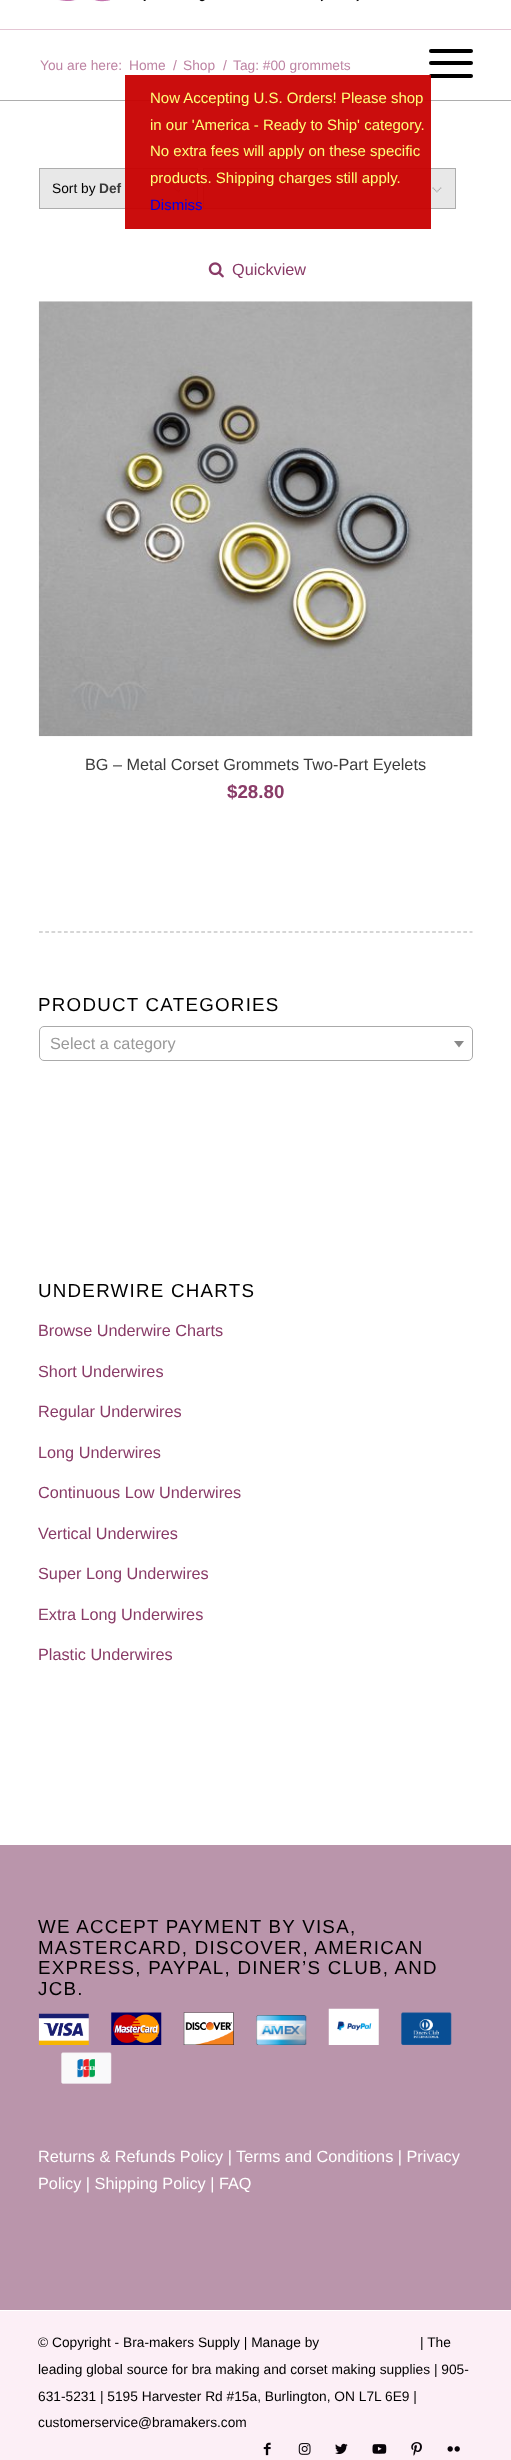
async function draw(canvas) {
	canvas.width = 511;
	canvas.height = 2460;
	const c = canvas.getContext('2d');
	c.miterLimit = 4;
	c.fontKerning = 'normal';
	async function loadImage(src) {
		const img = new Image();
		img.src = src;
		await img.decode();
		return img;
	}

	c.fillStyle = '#fff';
	c.fillRect(0, 0, 511, 2460);
	c.fillStyle = '#e4c6d4';
	c.fillRect(0, 29, 511, 1);
	c.drawImage(await loadImage('img1.png'), 58, 0, 301, 2);
	c.fillStyle = '#000';
	c.beginPath();
	c.roundRect(429, 61, 44, 4, 2);
	c.fill();
	c.beginPath();
	c.roundRect(429, 49, 44, 4, 2);
	c.fill();
	c.beginPath();
	c.roundRect(429, 74, 44, 4, 2);
	c.fill();
	c.font = '13.75px Liberation Sans';
	c.fillStyle = '#be84a3';
	for (const [text, x, y] of [
		['You are here:', 40, 70],
		['Home', 129, 70],
		['/', 173, 70],
		['Shop', 183, 70],
		['/', 223, 70],
		['Tag: #00 grommets', 233, 70],
	]) {
		c.fillText(text, x, y);
	}
	c.fillStyle = '#adadad';
	c.fillRect(0, 100, 511, 1);
	c.fillStyle = '#e8e8e8';
	c.fillRect(40, 169, 157, 39);
	c.drawImage(await loadImage('img2.png'), 173, 187, 10, 7);
	c.strokeStyle = '#adadad';
	c.strokeRect(39.5, 168.5, 158, 40);
	c.fillStyle = '#000';
	c.fillText('Sort by', 52, 193);
	c.font = 'bold 13.75px Liberation Sans';
	c.fillStyle = '#3b3b3b';
	c.fillText('Def', 99, 193);
	c.fillStyle = '#e8e8e8';
	c.fillRect(204, 169, 251, 39);
	c.drawImage(await loadImage('img3.png'), 432, 187, 10, 7);
	c.strokeRect(203.5, 168.5, 252, 40);
	c.drawImage(await loadImage('img4.png'), 208, 262, 16, 16);
	c.font = '16.25px Liberation Sans';
	c.fillStyle = '#893b67';
	c.fillText('Quickview', 232, 275);
	c.drawImage(await loadImage('img5.png'), 38, 301, 435, 436);
	c.fillStyle = '#3b3b3b';
	c.fillText('BG – Metal Corset Grommets Two-Part Eyelets', 85, 770);
	c.font = 'bold 18.75px Liberation Sans';
	c.fillStyle = '#893b67';
	c.fillText('$28.80', 227, 798);
	c.beginPath();
	c.moveTo(39, 932);
	c.lineTo(472.5, 932);
	c.lineWidth = 1.2;
	c.setLineDash([3.75, 2.49]);
	c.stroke();
	c.letterSpacing = '1.25px';
	c.font = '18.75px Liberation Sans';
	c.fillStyle = '#000';
	c.fillText('PRODUCT CATEGORIES', 38, 1011);
	c.beginPath();
	c.roundRect(39.5, 1026.5, 433, 34, 4.5);
	c.strokeStyle = '#aaa';
	c.lineWidth = 1;
	c.setLineDash([]);
	c.stroke();
	c.letterSpacing = '0px';
	c.font = '16.25px Liberation Sans';
	c.fillStyle = '#999';
	c.fillText('Select a category', 50, 1049);
	c.fillStyle = '#888';
	c.beginPath();
	c.moveTo(454, 1041);
	c.lineTo(464, 1041);
	c.lineTo(459, 1047.5);
	c.closePath();
	c.fill();
	c.letterSpacing = '1.25px';
	c.font = '18.75px Liberation Sans';
	c.fillStyle = '#000';
	c.fillText('UNDERWIRE CHARTS', 38, 1297);
	c.letterSpacing = '0px';
	c.font = '16.25px Liberation Sans';
	c.fillStyle = '#893b67';
	for (const [text, x, y] of [
		['Browse Underwire Charts', 38, 1336],
		['Short Underwires', 38, 1377],
		['Regular Underwires', 38, 1417],
		['Long Underwires', 38, 1458],
		['Continuous Low Underwires', 38, 1498],
		['Vertical Underwires', 38, 1539],
		['Super Long Underwires', 38, 1579],
		['Extra Long Underwires', 38, 1620],
		['Plastic Underwires', 38, 1660],
	]) {
		c.fillText(text, x, y);
	}
	c.fillStyle = '#ba95ab';
	c.fillRect(0, 1845, 511, 465);
	c.letterSpacing = '1.25px';
	c.font = '18.75px Liberation Sans';
	c.fillStyle = '#000';
	for (const [text, x, y] of [
		['WE ACCEPT PAYMENT BY VISA,', 38, 1933],
		['MASTERCARD, DISCOVER, AMERICAN', 38, 1954],
		['EXPRESS, PAYPAL, DINER’S CLUB, AND', 38, 1974],
		['JCB.', 38, 1995],
	]) {
		c.fillText(text, x, y);
	}
	c.drawImage(await loadImage('img6.png'), 38, 2013, 51, 32);
	c.drawImage(await loadImage('img7.png'), 111, 2012, 51, 33);
	c.drawImage(await loadImage('img8.png'), 183, 2012, 51, 33);
	c.drawImage(await loadImage('img9.png'), 256, 2015, 51, 30);
	c.drawImage(await loadImage('img10.png'), 328, 2008, 51, 37);
	c.drawImage(await loadImage('img11.png'), 401, 2012, 51, 33);
	c.drawImage(await loadImage('img12.png'), 61, 2052, 51, 32);
	c.letterSpacing = '0px';
	c.font = '16.25px Liberation Sans';
	c.fillStyle = '#fff';
	c.fillText('Returns & Refunds Policy | Terms and Conditions | Privacy', 38, 2162);
	c.fillText('Policy | Shipping Policy | FAQ', 38, 2189);
	c.fillStyle = '#fceff6';
	c.fillRect(0, 2311, 511, 149);
	c.font = '13.75px Liberation Sans';
	c.fillStyle = '#000';
	for (const [text, x, y] of [
		['© Copyright - Bra-makers Supply | Manage by', 38, 2347],
		['| The', 420, 2347],
		['leading global source for bra making and corset making supplies | 905-', 38, 2374],
		['631-5231 | 5195 Harvester Rd #15a, Burlington, ON L7L 6E9 |', 38, 2401],
		['customerservice@bramakers.com', 38, 2427],
	]) {
		c.fillText(text, x, y);
	}
	c.drawImage(await loadImage('img13.png'), 263, 2442, 8, 14);
	c.drawImage(await loadImage('img14.png'), 298, 2443, 13, 12);
	c.drawImage(await loadImage('img15.png'), 335, 2443, 13, 11);
	c.drawImage(await loadImage('img16.png'), 372, 2444, 15, 10);
	c.drawImage(await loadImage('img17.png'), 411, 2442, 11, 14);
	c.drawImage(await loadImage('img18.png'), 447, 2446, 13, 6);
	c.fillStyle = '#c80000f2';
	c.fillRect(125, 75, 306, 154);
	c.font = '15px Liberation Sans';
	c.fillStyle = '#ffff78';
	for (const [text, x, y] of [
		['Now Accepting U.S. Orders! Please shop', 150, 103],
		['in our \'America - Ready to Ship\' category.', 150, 130],
		['No extra fees will apply on these specific', 150, 156],
		['products. Shipping charges still apply.', 150, 183],
	]) {
		c.fillText(text, x, y);
	}
	c.fillStyle = '#00e';
	c.fillText('Dismiss', 150, 210);
}

draw(document.querySelector('canvas'));
